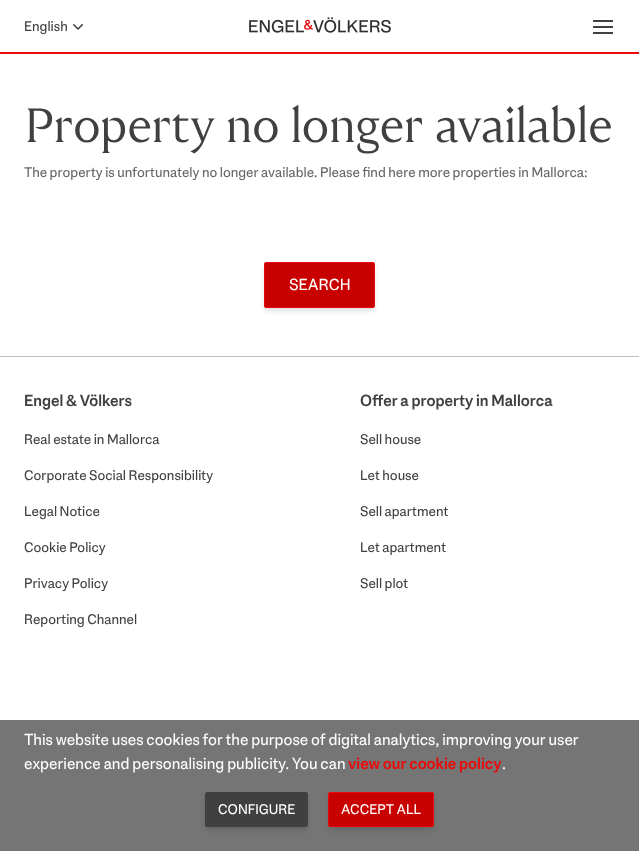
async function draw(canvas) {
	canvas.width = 639;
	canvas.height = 851;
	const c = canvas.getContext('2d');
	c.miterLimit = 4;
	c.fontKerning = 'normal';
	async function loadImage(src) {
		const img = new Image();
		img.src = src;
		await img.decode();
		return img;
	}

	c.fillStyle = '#fff';
	c.fillRect(0, 0, 639, 851);
	c.fillStyle = '#eb0a0a';
	c.fillRect(0, 52, 639, 2);
	c.font = '14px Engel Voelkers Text';
	c.fillStyle = '#404040';
	c.fillText('English', 24, 31);
	c.drawImage(await loadImage('img1.png'), 73, 24, 10, 6);
	c.drawImage(await loadImage('img2.png'), 249, 17, 142, 16);
	for (const [x, y, w, h, color] of [
		[593, 20, 20, 2, '#404040'],
		[593, 26, 20, 2, '#404040'],
		[593, 32, 20, 2, '#404040'],
	]) {
		c.fillStyle = color;
		c.fillRect(x, y, w, h);
	}
	c.font = '48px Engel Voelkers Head';
	c.fillText('Property no longer available', 24, 142);
	c.font = '14px Engel Voelkers Text';
	c.fillStyle = '#666';
	c.fillText('The property is unfortunately no longer available. Please find here more properties in Mallorca:', 24, 177);
	c.fillStyle = '#0000001a';
	c.filter = 'blur(2px)';
	c.beginPath();
	c.rect(266, 266, 107, 42);
	c.fill();
	c.filter = 'none';
	c.filter = 'blur(3px)';
	c.beginPath();
	c.roundRect(265, 267, 109, 44, 1);
	c.fill();
	c.filter = 'none';
	c.fillStyle = '#c80000';
	c.beginPath();
	c.roundRect(264.5, 262.5, 110, 45, 1.5);
	c.fill();
	c.strokeStyle = '#eb0a0a';
	c.stroke();
	c.font = '16px Engel Voelkers Text';
	c.fillStyle = '#fff';
	c.fillText('SEARCH', 289, 290);
	c.fillStyle = '#bcbdbc';
	c.fillRect(0, 356, 639, 1);
	c.font = 'bold 16px Engel Voelkers Text';
	c.fillStyle = '#404040';
	c.fillText('Engel & Völkers', 24, 406);
	c.font = '14px Engel Voelkers Text';
	for (const [text, x, y] of [
		['Real estate in Mallorca', 24, 444],
		['Corporate Social Responsibility', 24, 480],
		['Legal Notice', 24, 516],
		['Cookie Policy', 24, 552],
		['Privacy Policy', 24, 588],
		['Reporting Channel', 24, 624],
	]) {
		c.fillText(text, x, y);
	}
	c.font = 'bold 16px Engel Voelkers Text';
	c.fillText('Offer a property in Mallorca', 360, 406);
	c.font = '14px Engel Voelkers Text';
	for (const [text, x, y] of [
		['Sell house', 360, 444],
		['Let house', 360, 480],
		['Sell apartment', 360, 516],
		['Let apartment', 360, 552],
		['Sell plot', 360, 588],
	]) {
		c.fillText(text, x, y);
	}
	c.fillStyle = '#666666e6';
	c.fillRect(0, 720, 639, 131);
	c.font = '16px Engel Voelkers Text';
	c.fillStyle = '#fff';
	c.fillText('This website uses cookies for the purpose of digital analytics, improving your user', 24, 745);
	c.fillText('experience and personalising publicity. You can', 24, 769);
	c.font = 'bold 16px Engel Voelkers Text';
	c.fillStyle = '#eb0a0a';
	c.fillText('view our cookie policy', 348, 769);
	c.font = '16px Engel Voelkers Text';
	c.fillStyle = '#fff';
	c.fillText('.', 502, 769);
	c.fillStyle = '#0000001a';
	c.filter = 'blur(2px)';
	c.beginPath();
	c.rect(207, 796, 99, 31);
	c.fill();
	c.filter = 'none';
	c.filter = 'blur(3px)';
	c.beginPath();
	c.roundRect(206, 797, 101, 33, 1);
	c.fill();
	c.filter = 'none';
	c.fillStyle = '#404040';
	c.beginPath();
	c.roundRect(205.5, 792.5, 102, 34, 1.5);
	c.fill();
	c.strokeStyle = '#404040';
	c.stroke();
	c.font = '14px Engel Voelkers Text';
	c.fillStyle = '#fff';
	c.fillText('CONFIGURE', 218, 814);
	c.fillStyle = '#0000001a';
	c.filter = 'blur(2px)';
	c.beginPath();
	c.rect(330, 796, 102, 31);
	c.fill();
	c.filter = 'none';
	c.filter = 'blur(3px)';
	c.beginPath();
	c.roundRect(329, 797, 104, 33, 1);
	c.fill();
	c.filter = 'none';
	c.fillStyle = '#c80000';
	c.beginPath();
	c.roundRect(328.5, 792.5, 105, 34, 1.5);
	c.fill();
	c.strokeStyle = '#eb0a0a';
	c.stroke();
	c.fillStyle = '#fff';
	c.fillText('ACCEPT ALL', 341, 814);
}

draw(document.querySelector('canvas'));
